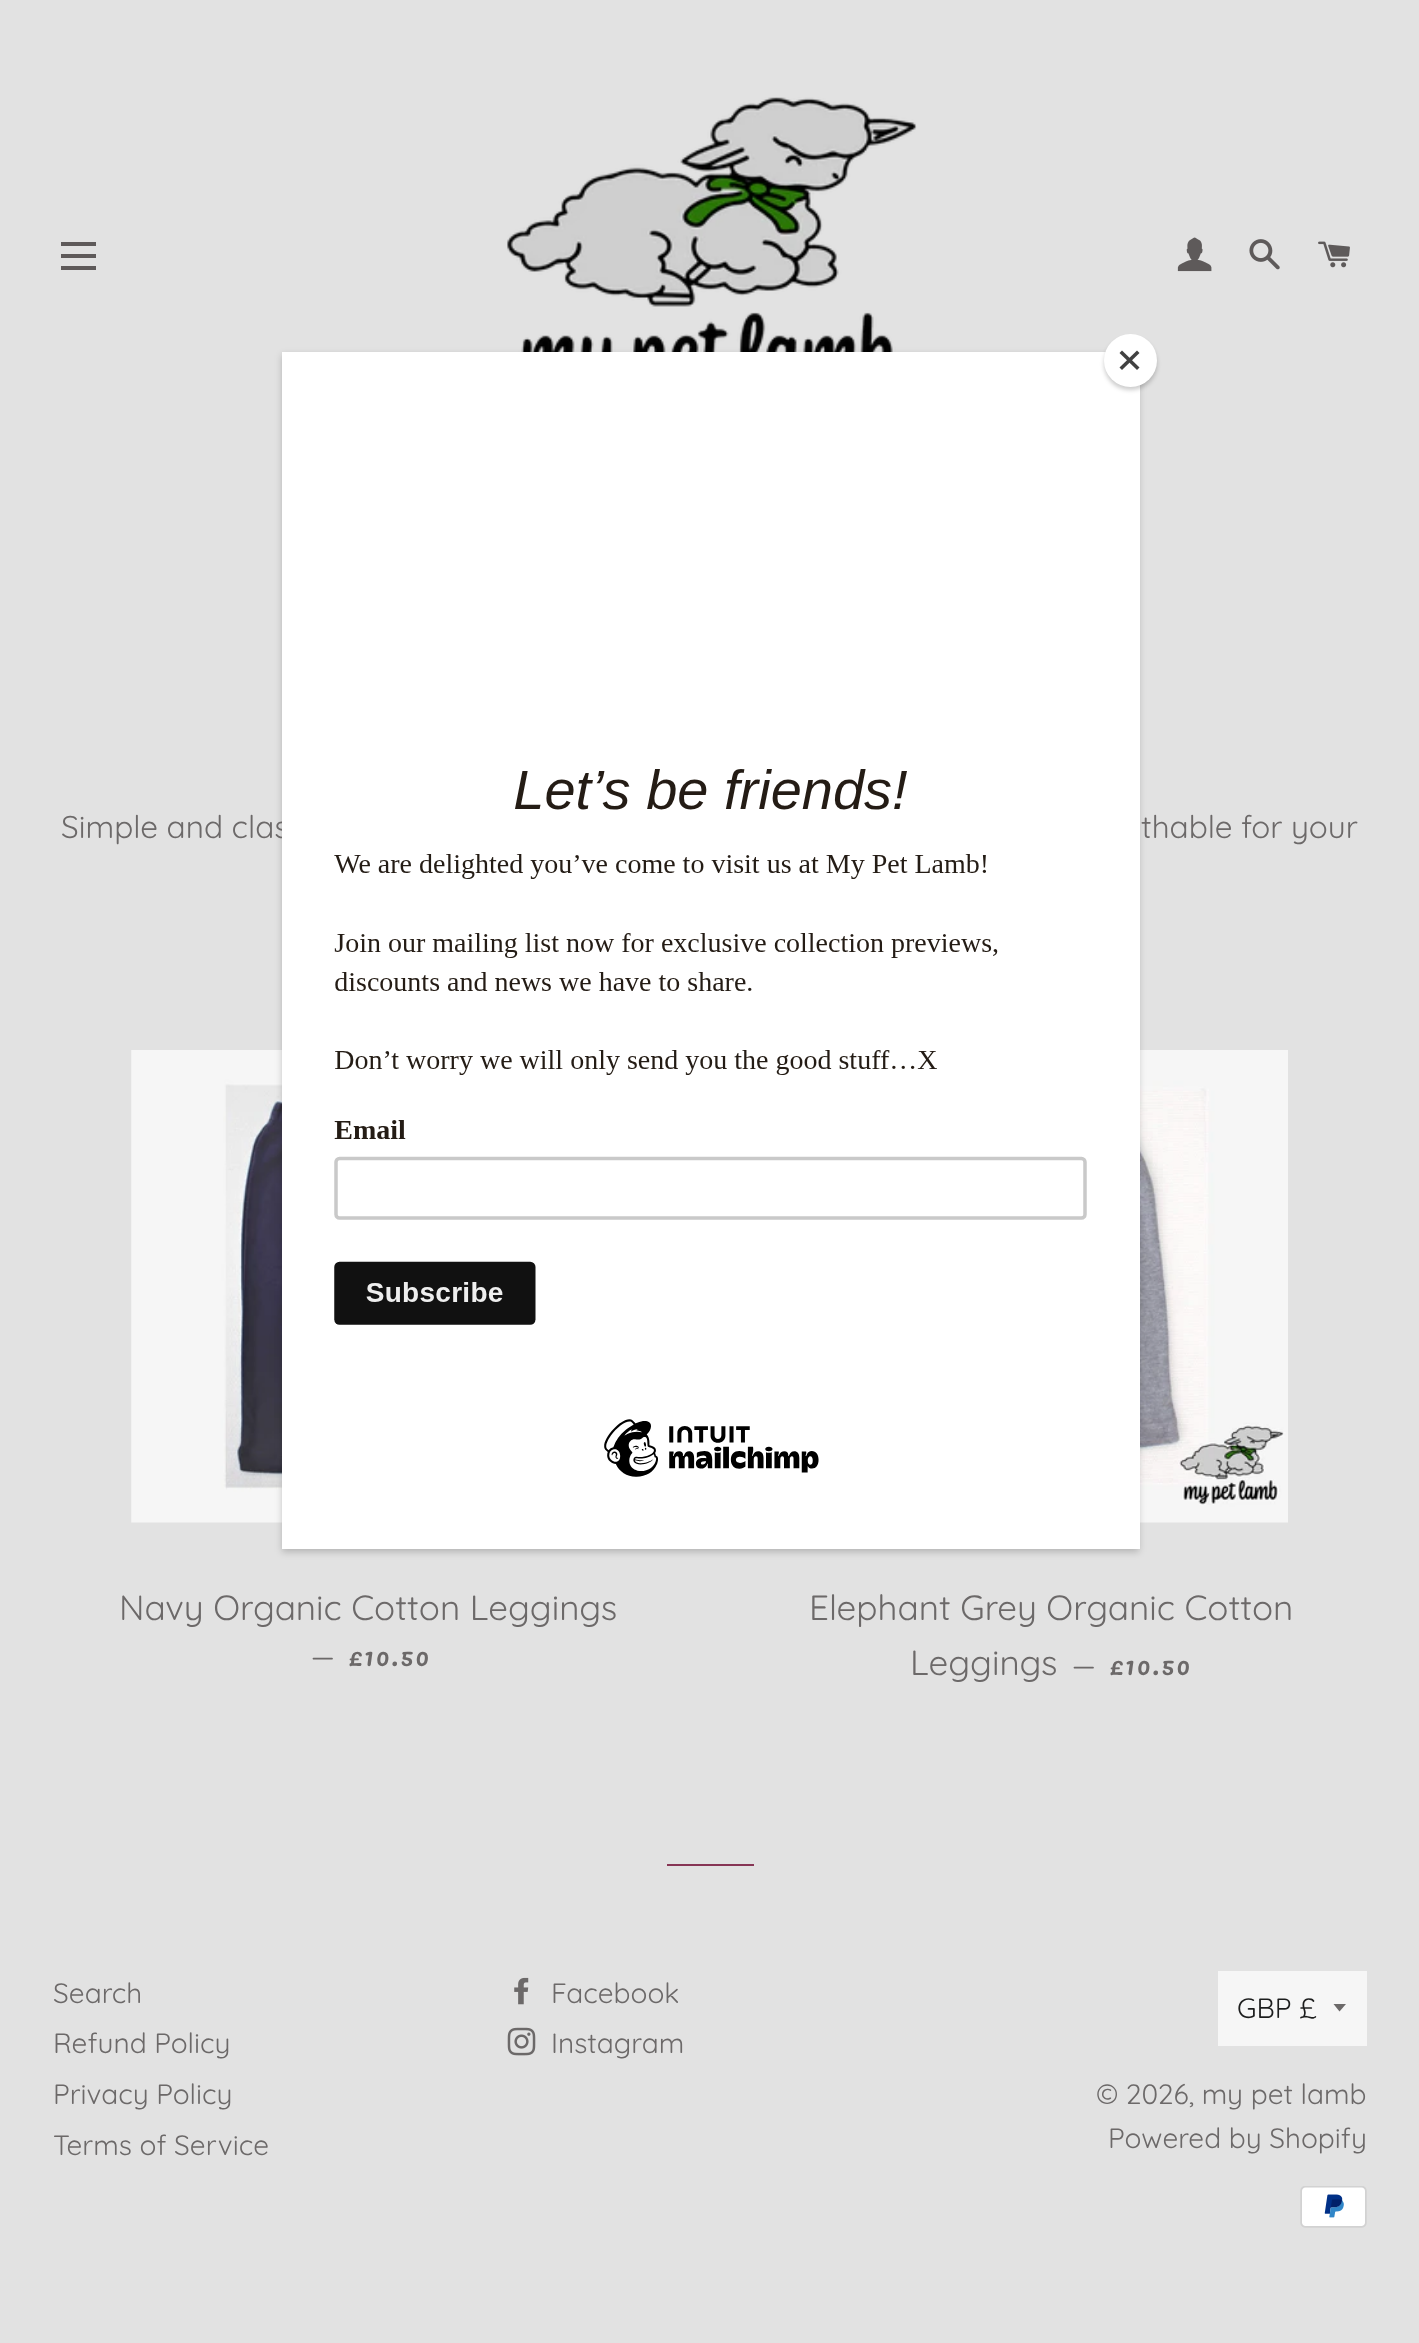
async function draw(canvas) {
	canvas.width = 1419;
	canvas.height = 2343;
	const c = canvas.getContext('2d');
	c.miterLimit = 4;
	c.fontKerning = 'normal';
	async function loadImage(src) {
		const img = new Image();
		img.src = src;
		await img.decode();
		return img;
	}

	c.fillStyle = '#e2e2e2';
	c.fillRect(0, 0, 1419, 2343);
	for (const [x, y, w, h, color] of [
		[61, 242, 35, 4, '#5e5a5a'],
		[61, 254, 35, 4, '#5e5a5a'],
		[61, 266, 35, 4, '#5e5a5a'],
	]) {
		c.fillStyle = color;
		c.fillRect(x, y, w, h);
	}
	c.drawImage(await loadImage('img1.png'), 507, 97, 410, 255);
	c.drawImage(await loadImage('img2.png'), 1177, 237, 35, 35);
	c.drawImage(await loadImage('img3.png'), 1249, 239, 31, 31);
	c.drawImage(await loadImage('img4.png'), 1318, 241, 32, 27);
	c.drawImage(await loadImage('img6.png'), 131, 1050, 151, 473);
	c.drawImage(await loadImage('img7.png'), 1140, 1050, 148, 473);
	c.fillStyle = '#00000033';
	c.filter = 'blur(3.5px)';
	c.beginPath();
	c.rect(282, 355, 857, 1197);
	c.fill();
	c.filter = 'none';
	c.font = '31.5px Quicksand';
	c.fillStyle = '#6c6969';
	c.fillText('Simple and clas', 61, 838);
	c.drawImage(await loadImage('img5.png'), 282, 352, 858, 1197);
	c.fillStyle = '#00000033';
	c.filter = 'blur(2px)';
	c.beginPath();
	c.roundRect(1104, 338, 53, 52, 26);
	c.fill();
	c.filter = 'none';
	c.fillStyle = '#fff';
	c.beginPath();
	c.arc(1130.5, 360.5, 26.5, 0, 2 * Math.PI);
	c.fill();
	c.fillStyle = '#414141';
	c.beginPath();
	c.moveTo(1137, 350.5);
	c.lineTo(1139.5, 353);
	c.lineTo(1122, 370);
	c.lineTo(1119.5, 367.5);
	c.closePath();
	c.fill();
	c.beginPath();
	c.moveTo(1119.5, 353);
	c.lineTo(1122, 350.5);
	c.lineTo(1139.5, 367.5);
	c.lineTo(1137, 370);
	c.closePath();
	c.fill();
	c.fillStyle = '#6c6969';
	c.fillText('thable for your', 1141, 838);
	c.font = '35px Quicksand';
	c.fillText('Navy Organic Cotton Leggings', 119, 1620);
	c.font = '28px Quicksand';
	c.fillText('—', 311, 1666);
	c.letterSpacing = '2.5px';
	c.font = '24.5px Pacifico';
	c.fillText('£10.50', 349, 1666);
	c.letterSpacing = '0px';
	c.font = '35px Quicksand';
	c.fillText('Elephant Grey Organic Cotton', 809, 1620);
	c.fillText('Leggings', 910, 1675);
	c.font = '28px Quicksand';
	c.fillText('—', 1072, 1675);
	c.letterSpacing = '2.5px';
	c.font = '24.5px Pacifico';
	c.fillText('£10.50', 1110, 1675);
	c.fillStyle = '#873655';
	c.fillRect(667, 1864, 87, 2);
	c.letterSpacing = '0px';
	c.font = '28px Quicksand';
	c.fillStyle = '#6c6969';
	for (const [text, x, y] of [
		['Search', 53, 2003],
		['Refund Policy', 53, 2053],
		['Privacy Policy', 53, 2104],
		['Terms of Service', 53, 2155],
	]) {
		c.fillText(text, x, y);
	}
	c.drawImage(await loadImage('img8.png'), 514, 1977, 15, 28);
	c.fillText('Facebook', 551, 2003);
	c.drawImage(await loadImage('img9.png'), 507, 2027, 29, 29);
	c.fillText('Instagram', 551, 2053);
	c.fillStyle = '#f6f6f6';
	c.fillRect(1218, 1971, 149, 75);
	c.fillStyle = '#6c6969';
	c.beginPath();
	c.moveTo(1333.5, 2004);
	c.lineTo(1339.5, 2011.5);
	c.lineTo(1346, 2004);
	c.closePath();
	c.fill();
	c.fillStyle = '#1c1d1d';
	c.fillText('GBP £', 1237, 2018);
	c.fillStyle = '#6c6969';
	c.fillText('© 2026, my pet lamb', 1096, 2104);
	c.fillText('Powered by Shopify', 1108, 2148);
	c.drawImage(await loadImage('img10.png'), 1300, 2186, 67, 42);
}

draw(document.querySelector('canvas'));
